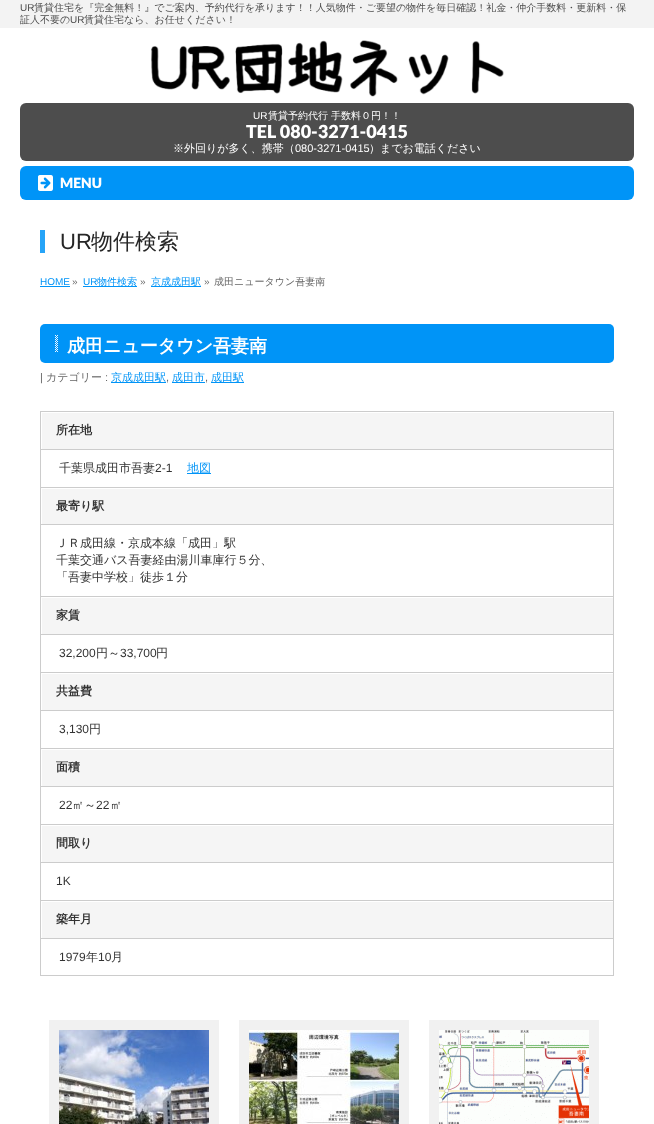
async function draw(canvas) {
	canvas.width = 654;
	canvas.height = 1124;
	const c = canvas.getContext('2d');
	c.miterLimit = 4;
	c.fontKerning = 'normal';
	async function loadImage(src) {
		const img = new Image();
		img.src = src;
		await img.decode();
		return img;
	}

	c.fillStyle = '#fff';
	c.fillRect(0, 0, 654, 1124);
	c.fillStyle = '#f3f3f3';
	c.fillRect(0, 0, 654, 28);
	c.font = '10px Liberation Sans';
	c.fillStyle = '#4d4d4d';
	c.fillText('UR', 20, 11);
	c.font = '500 10px WenQuanYi Zen Hei';
	c.fillText('賃貸住宅を『完全無料！』でご案内、予約代行を承ります！！人気物件・ご要望の物件を毎日確認！礼金・仲介手数料・更新料・保', 34, 11);
	c.fillText('証人不要の', 20, 23);
	c.font = '10px Liberation Sans';
	c.fillText('UR', 70, 23);
	c.font = '500 10px WenQuanYi Zen Hei';
	c.fillText('賃貸住宅なら、お任せください！', 84, 23);
	c.drawImage(await loadImage('img1.png'), 151, 40, 353, 57);
	c.beginPath();
	c.roundRect(20, 103, 614, 58, 6);
	c.fill();
	c.font = '10px Liberation Sans';
	c.fillStyle = '#fff';
	c.fillText('UR', 253, 119);
	c.font = '500 10px WenQuanYi Zen Hei';
	c.fillText('賃貸予約代行 手数料０円！！', 268, 119);
	c.font = '900 18px Lato';
	c.fillText('TEL 080-3271-0415', 246, 138);
	c.font = '500 11px WenQuanYi Zen Hei';
	c.fillText('※外回りが多く、携帯（', 173, 152);
	c.font = '11px Liberation Sans';
	c.fillText('080-3271-0415', 295, 152);
	c.font = '500 11px WenQuanYi Zen Hei';
	c.fillText('）までお電話ください', 369, 152);
	c.fillStyle = '#0094f7';
	c.beginPath();
	c.roundRect(20, 166, 614, 34, 6);
	c.fill();
	c.drawImage(await loadImage('img2.png'), 38, 175, 15, 16);
	c.font = '900 14px Lato';
	c.fillStyle = '#fff';
	c.fillText('MENU', 60, 188);
	c.fillStyle = '#26a4f8';
	c.fillRect(40, 230, 5, 23);
	c.font = '22px Liberation Sans';
	c.fillStyle = '#262626';
	c.fillText('UR', 60, 249);
	c.font = '500 22px WenQuanYi Zen Hei';
	c.fillText('物件検索', 91, 249);
	c.font = '10px Liberation Sans';
	c.fillStyle = '#0094f7';
	c.fillText('HOME', 40, 285);
	c.fillRect(40, 286, 30, 1);
	c.fillStyle = '#666';
	c.fillText('»', 72, 285);
	c.fillStyle = '#0094f7';
	c.fillText('UR', 83, 285);
	c.fillRect(83, 286, 54, 1);
	c.font = '500 10px WenQuanYi Zen Hei';
	c.fillText('物件検索', 97, 285);
	c.font = '10px Liberation Sans';
	c.fillStyle = '#666';
	c.fillText('»', 140, 285);
	c.fillStyle = '#0094f7';
	c.fillRect(151, 286, 50, 1);
	c.font = '500 10px WenQuanYi Zen Hei';
	c.fillText('京成成田駅', 151, 285);
	c.font = '10px Liberation Sans';
	c.fillStyle = '#666';
	c.fillText('»', 204, 285);
	c.font = '500 10px WenQuanYi Zen Hei';
	c.fillText('成田ニュータウン吾妻南', 214, 285);
	c.fillStyle = '#0094f7';
	c.beginPath();
	c.roundRect(40, 324, 574, 39, 5);
	c.fill();
	c.drawImage(await loadImage('img3.png'), 55, 335, 3, 17);
	c.font = 'bold 18px WenQuanYi Zen Hei';
	c.fillStyle = '#fff';
	c.fillText('成田ニュータウン吾妻南', 67, 352);
	c.font = '11px Liberation Sans';
	c.fillStyle = '#666';
	c.fillText('|', 40, 381);
	c.font = '500 11px WenQuanYi Zen Hei';
	c.fillText('カテゴリー', 46, 381);
	c.font = '11px Liberation Sans';
	c.fillText(':', 105, 381);
	c.fillStyle = '#0094f7';
	c.fillRect(111, 382, 55, 1);
	c.font = '500 11px WenQuanYi Zen Hei';
	c.fillText('京成成田駅', 111, 381);
	c.font = '11px Liberation Sans';
	c.fillStyle = '#666';
	c.fillText(',', 166, 381);
	c.fillStyle = '#0094f7';
	c.fillRect(172, 382, 33, 1);
	c.font = '500 11px WenQuanYi Zen Hei';
	c.fillText('成田市', 172, 381);
	c.font = '11px Liberation Sans';
	c.fillStyle = '#666';
	c.fillText(',', 205, 381);
	c.fillStyle = '#0094f7';
	c.fillRect(211, 382, 33, 1);
	c.font = '500 11px WenQuanYi Zen Hei';
	c.fillText('成田駅', 211, 381);
	for (const [x, y, w, h, color] of [
		[40, 411, 574, 1, '#ccc'],
		[42, 413, 571, 36, '#f5f5f5'],
		[613, 412, 1, 564, '#ccc'],
		[40, 449, 574, 1, '#ccc'],
		[40, 412, 1, 38, '#ccc'],
	]) {
		c.fillStyle = color;
		c.fillRect(x, y, w, h);
	}
	c.font = 'bold 12px WenQuanYi Zen Hei';
	c.fillStyle = '#333';
	c.fillText('所在地', 56, 434);
	c.fillStyle = '#ccc';
	c.fillRect(40, 487, 574, 1);
	c.fillRect(40, 450, 1, 38);
	c.font = '500 12px WenQuanYi Zen Hei';
	c.fillStyle = '#333';
	c.fillText('千葉県成田市吾妻', 59, 472);
	c.font = '12px Liberation Sans';
	c.fillText('2-1', 155, 472);
	c.fillStyle = '#0094f7';
	c.fillRect(187, 473, 24, 1);
	c.font = '500 12px WenQuanYi Zen Hei';
	c.fillText('地図', 187, 472);
	for (const [x, y, w, h, color] of [
		[42, 489, 571, 35, '#f5f5f5'],
		[40, 524, 574, 1, '#ccc'],
		[40, 488, 1, 37, '#ccc'],
	]) {
		c.fillStyle = color;
		c.fillRect(x, y, w, h);
	}
	c.font = 'bold 12px WenQuanYi Zen Hei';
	c.fillStyle = '#333';
	c.fillText('最寄り駅', 56, 510);
	c.fillStyle = '#ccc';
	c.fillRect(40, 596, 574, 1);
	c.fillRect(40, 525, 1, 72);
	c.font = '500 12px WenQuanYi Zen Hei';
	c.fillStyle = '#333';
	for (const [text, x, y] of [
		['ＪＲ成田線・京成本線「成田」駅', 56, 547],
		['千葉交通バス吾妻経由湯川車庫行５分、', 56, 564],
		['「吾妻中学校」徒歩１分', 56, 581],
	]) {
		c.fillText(text, x, y);
	}
	for (const [x, y, w, h, color] of [
		[42, 598, 571, 36, '#f5f5f5'],
		[40, 634, 574, 1, '#ccc'],
		[40, 597, 1, 38, '#ccc'],
	]) {
		c.fillStyle = color;
		c.fillRect(x, y, w, h);
	}
	c.font = 'bold 12px WenQuanYi Zen Hei';
	c.fillStyle = '#333';
	c.fillText('家賃', 56, 619);
	c.fillStyle = '#ccc';
	c.fillRect(40, 672, 574, 1);
	c.fillRect(40, 635, 1, 38);
	c.font = '12px Liberation Sans';
	c.fillStyle = '#333';
	c.fillText('32,200', 59, 657);
	c.font = '500 12px WenQuanYi Zen Hei';
	c.fillText('円～', 96, 657);
	c.font = '12px Liberation Sans';
	c.fillText('33,700', 120, 657);
	c.font = '500 12px WenQuanYi Zen Hei';
	c.fillText('円', 156, 657);
	for (const [x, y, w, h, color] of [
		[42, 674, 571, 36, '#f5f5f5'],
		[40, 710, 574, 1, '#ccc'],
		[40, 673, 1, 38, '#ccc'],
	]) {
		c.fillStyle = color;
		c.fillRect(x, y, w, h);
	}
	c.font = 'bold 12px WenQuanYi Zen Hei';
	c.fillStyle = '#333';
	c.fillText('共益費', 56, 695);
	c.fillStyle = '#ccc';
	c.fillRect(40, 748, 574, 1);
	c.fillRect(40, 711, 1, 38);
	c.font = '12px Liberation Sans';
	c.fillStyle = '#333';
	c.fillText('3,130', 59, 733);
	c.font = '500 12px WenQuanYi Zen Hei';
	c.fillText('円', 89, 733);
	for (const [x, y, w, h, color] of [
		[42, 750, 571, 36, '#f5f5f5'],
		[40, 786, 574, 1, '#ccc'],
		[40, 749, 1, 38, '#ccc'],
	]) {
		c.fillStyle = color;
		c.fillRect(x, y, w, h);
	}
	c.font = 'bold 12px WenQuanYi Zen Hei';
	c.fillStyle = '#333';
	c.fillText('面積', 56, 771);
	c.fillStyle = '#ccc';
	c.fillRect(40, 824, 574, 1);
	c.fillRect(40, 787, 1, 38);
	c.font = '12px Liberation Sans';
	c.fillStyle = '#333';
	c.fillText('22', 59, 809);
	c.font = '500 12px WenQuanYi Zen Hei';
	c.fillText('㎡～', 72, 809);
	c.font = '12px Liberation Sans';
	c.fillText('22', 96, 809);
	c.font = '500 12px WenQuanYi Zen Hei';
	c.fillText('㎡', 110, 809);
	for (const [x, y, w, h, color] of [
		[42, 826, 571, 36, '#f5f5f5'],
		[40, 862, 574, 1, '#ccc'],
		[40, 825, 1, 38, '#ccc'],
	]) {
		c.fillStyle = color;
		c.fillRect(x, y, w, h);
	}
	c.font = 'bold 12px WenQuanYi Zen Hei';
	c.fillStyle = '#333';
	c.fillText('間取り', 56, 847);
	c.fillStyle = '#ccc';
	c.fillRect(40, 900, 574, 1);
	c.fillRect(40, 863, 1, 38);
	c.font = '12px Liberation Sans';
	c.fillStyle = '#333';
	c.fillText('1K', 56, 885);
	for (const [x, y, w, h, color] of [
		[42, 902, 571, 36, '#f5f5f5'],
		[40, 938, 574, 1, '#ccc'],
		[40, 901, 1, 38, '#ccc'],
	]) {
		c.fillStyle = color;
		c.fillRect(x, y, w, h);
	}
	c.font = 'bold 12px WenQuanYi Zen Hei';
	c.fillStyle = '#333';
	c.fillText('築年月', 56, 923);
	c.fillStyle = '#ccc';
	c.fillRect(40, 975, 574, 1);
	c.fillRect(40, 939, 1, 37);
	c.font = '12px Liberation Sans';
	c.fillStyle = '#333';
	c.fillText('1979', 59, 961);
	c.font = '500 12px WenQuanYi Zen Hei';
	c.fillText('年', 86, 961);
	c.font = '12px Liberation Sans';
	c.fillText('10', 98, 961);
	c.font = '500 12px WenQuanYi Zen Hei';
	c.fillText('月', 111, 961);
	c.strokeStyle = '#f1f1f1';
	c.lineWidth = 10;
	c.strokeRect(54, 1025, 160, 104);
	c.drawImage(await loadImage('img4.png'), 59, 1030, 150, 94);
	c.strokeRect(244, 1025, 160, 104);
	c.drawImage(await loadImage('img5.png'), 249, 1030, 150, 94);
	c.strokeRect(434, 1025, 160, 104);
	c.drawImage(await loadImage('img6.png'), 439, 1030, 150, 94);
}

draw(document.querySelector('canvas'));
